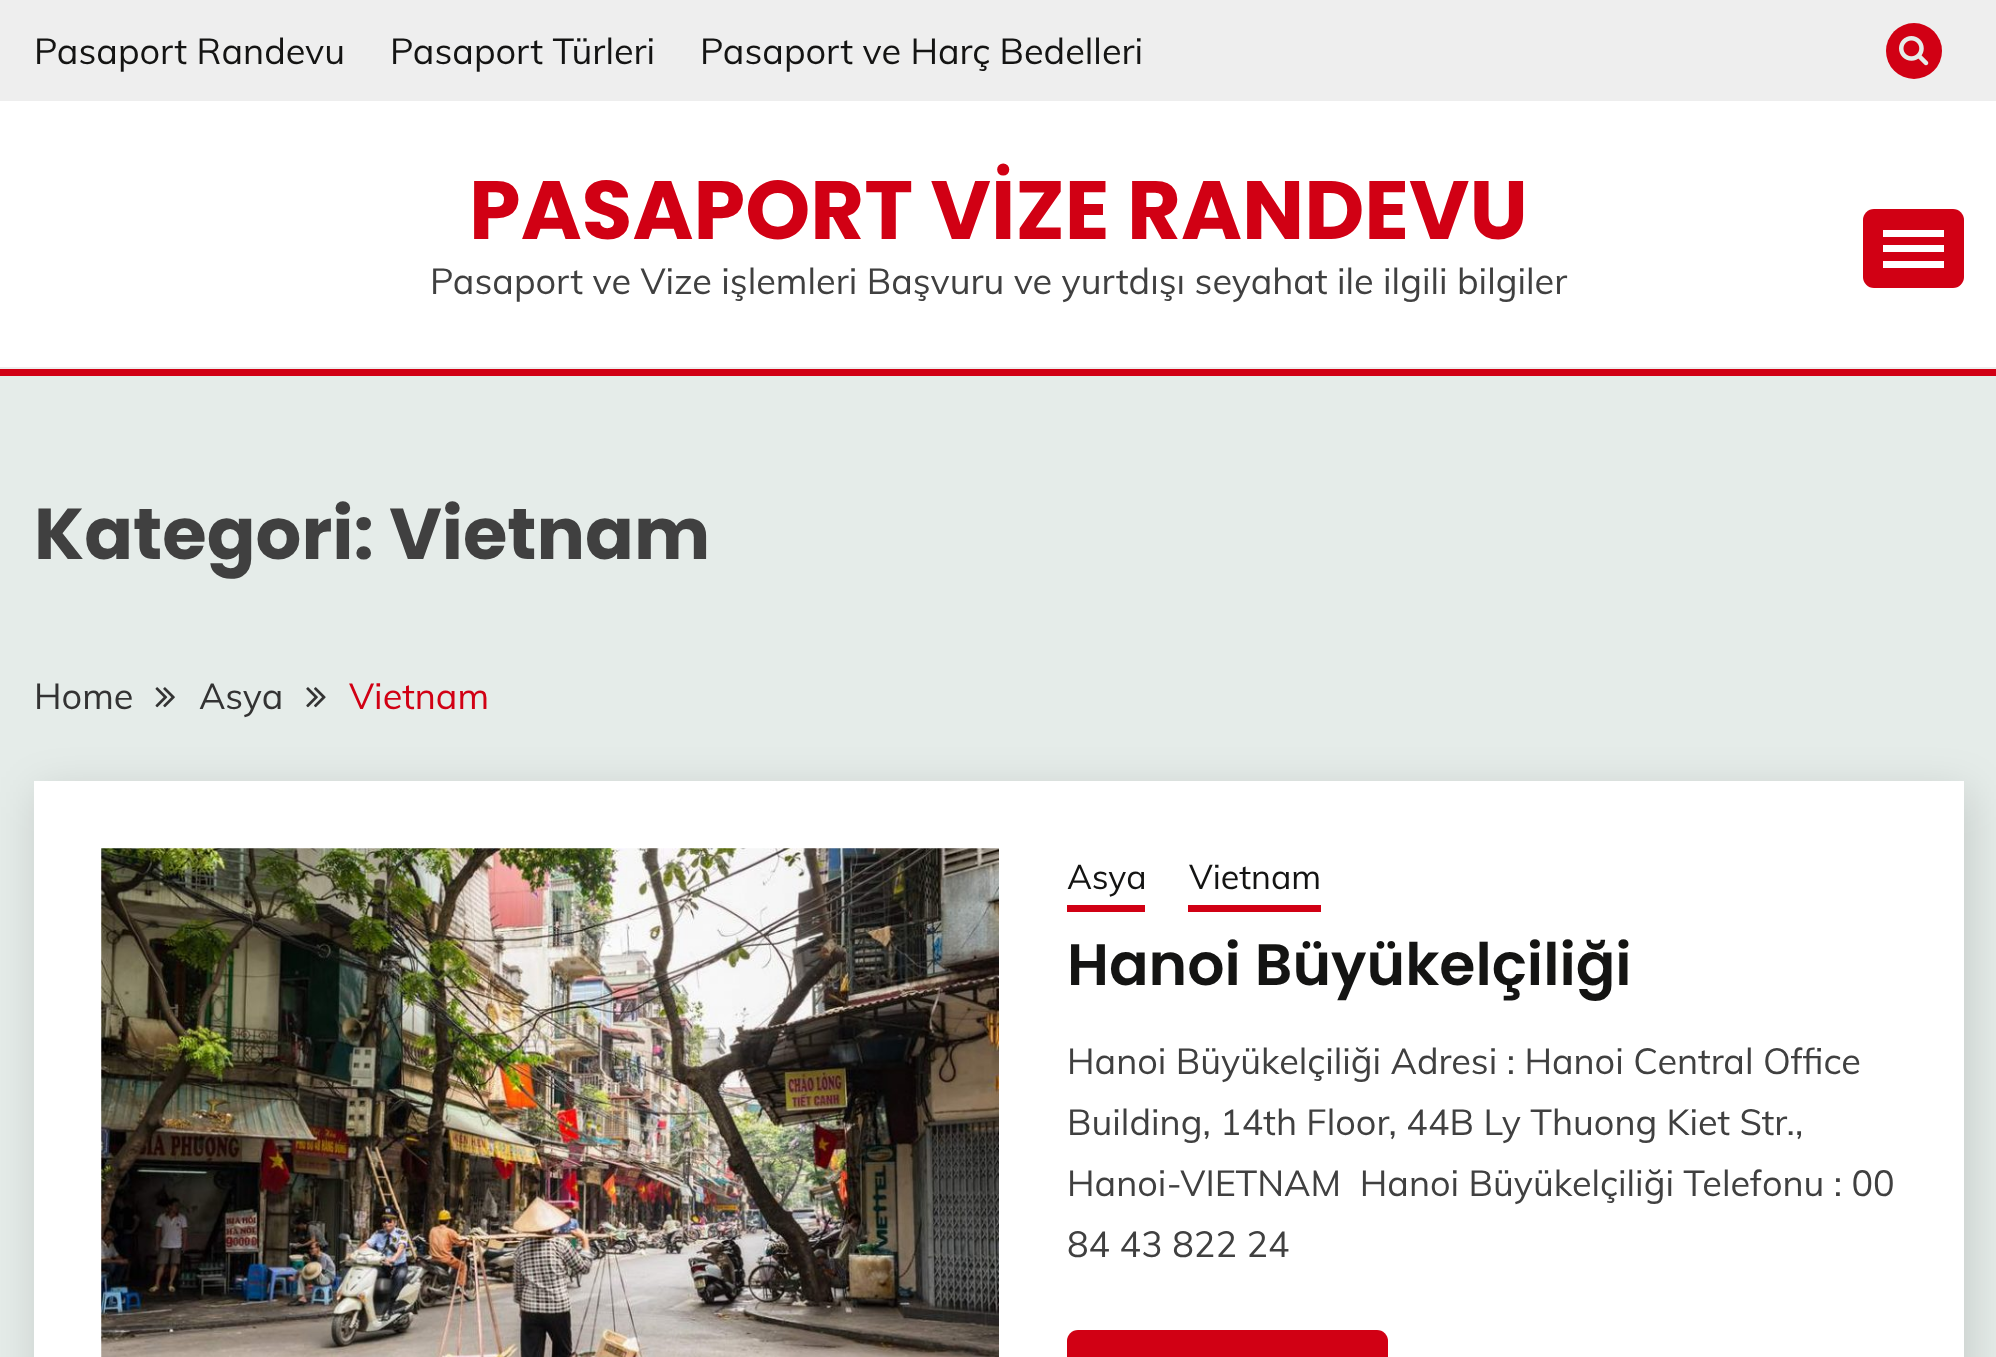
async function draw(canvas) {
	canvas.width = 1996;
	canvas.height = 1357;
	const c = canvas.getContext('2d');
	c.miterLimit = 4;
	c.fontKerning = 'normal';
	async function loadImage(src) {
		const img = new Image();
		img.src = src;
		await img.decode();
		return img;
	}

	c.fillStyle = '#e5ece9';
	c.fillRect(0, 0, 1996, 1357);
	c.fillStyle = '#fff';
	c.fillRect(0, 101, 1996, 266);
	c.fillStyle = '#eee';
	c.fillRect(0, 0, 1996, 101);
	c.font = '36px Muli';
	c.fillStyle = '#141413';
	for (const [text, x, y] of [
		['Pasaport Randevu', 34, 64],
		['Pasaport Türleri', 390, 64],
		['Pasaport ve Harç Bedelleri', 700, 64],
	]) {
		c.fillText(text, x, y);
	}
	c.fillStyle = '#d10014';
	c.beginPath();
	c.arc(1914, 51, 28, 0, 2 * Math.PI);
	c.fill();
	c.drawImage(await loadImage('img1.png'), 1899, 36, 30, 30);
	c.fillStyle = '#eee';
	c.fillRect(0, 367, 1996, 2);
	c.font = 'bold 82.75px Poppins';
	c.fillStyle = '#d10014';
	c.fillText('PASAPORT VİZE RANDEVU', 469, 239);
	c.font = '36px Muli';
	c.fillStyle = '#404040';
	c.fillText('Pasaport ve Vize işlemleri Başvuru ve yurtdışı seyahat ile ilgili bilgiler', 430, 294);
	c.fillStyle = '#d10014';
	c.beginPath();
	c.roundRect(1863, 209, 101, 79, 11);
	c.fill();
	for (const [x, y, w, h, color] of [
		[1883, 230, 61, 7, '#fff'],
		[1883, 245, 61, 7, '#fff'],
		[1883, 261, 61, 7, '#fff'],
		[0, 369, 1996, 7, '#d10014'],
	]) {
		c.fillStyle = color;
		c.fillRect(x, y, w, h);
	}
	c.font = 'bold 72px Poppins';
	c.fillStyle = '#404040';
	c.fillText('Kategori: Vietnam', 34, 559);
	c.font = '36px Muli';
	c.fillStyle = '#333';
	c.fillText('Home', 34, 709);
	c.drawImage(await loadImage('img2.png'), 155, 687, 20, 21);
	c.fillText('Asya', 199, 709);
	c.drawImage(await loadImage('img3.png'), 306, 687, 20, 21);
	c.fillStyle = '#d10014';
	c.fillText('Vietnam', 349, 709);
	c.fillStyle = '#00000024';
	c.filter = 'blur(22.5px)';
	c.beginPath();
	c.rect(38, 792, 1931, 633);
	c.fill();
	c.filter = 'none';
	c.fillStyle = '#fff';
	c.fillRect(34, 781, 1930, 576);
	c.drawImage(await loadImage('img4.png'), 101, 848, 898, 509);
	c.font = '34px Muli';
	c.fillStyle = '#141413';
	c.fillText('Asya', 1067, 889);
	c.fillStyle = '#d10014';
	c.fillRect(1067, 905, 78, 7);
	c.fillStyle = '#141413';
	c.fillText('Vietnam', 1189, 889);
	c.fillStyle = '#d10014';
	c.fillRect(1188, 905, 133, 7);
	c.font = '600 58.5px Poppins';
	c.fillStyle = '#141413';
	c.fillText('Hanoi Büyükelçiliği', 1067, 985);
	c.font = '36px Muli';
	c.fillStyle = '#404040';
	for (const [text, x, y] of [
		['Hanoi Büyükelçiliği Adresi : Hanoi Central Office', 1067, 1074],
		['Building, 14th Floor, 44B Ly Thuong Kiet Str.,', 1067, 1135],
		['Hanoi-VIETNAM  Hanoi Büyükelçiliği Telefonu : 00', 1067, 1196],
		['84 43 822 24', 1067, 1257],
	]) {
		c.fillText(text, x, y);
	}
	c.fillStyle = '#d10014';
	c.beginPath();
	c.roundRect(1067, 1330, 321, 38, 11);
	c.fill();
}

draw(document.querySelector('canvas'));
